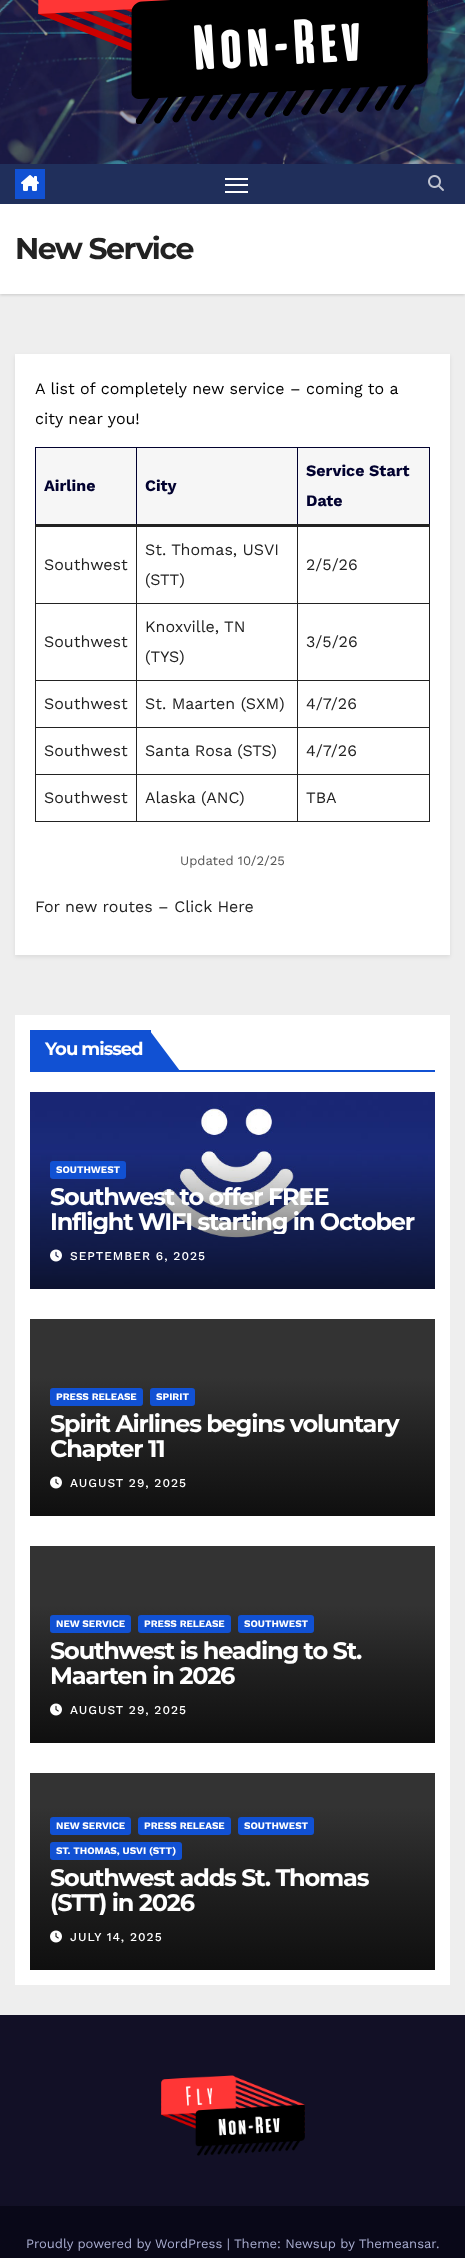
async function draw(canvas) {
	canvas.width = 465;
	canvas.height = 2258;
	const c = canvas.getContext('2d');
	c.miterLimit = 4;
	c.fontKerning = 'normal';
	async function loadImage(src) {
		const img = new Image();
		img.src = src;
		await img.decode();
		return img;
	}
	let gradient;

	c.fillStyle = '#eee';
	c.fillRect(0, 0, 465, 2258);
	c.drawImage(await loadImage('img1.png'), 0, 0, 465, 164);
	c.drawImage(await loadImage('img2.png'), 38, 0, 390, 124);
	c.fillStyle = '#00000026';
	c.filter = 'blur(1.5px)';
	c.beginPath();
	c.rect(0, 205, 465, 90);
	c.fill();
	c.filter = 'none';
	c.fillStyle = '#202f5b';
	c.fillRect(0, 164, 465, 40);
	c.fillStyle = '#1151d3';
	c.fillRect(15, 169, 30, 30);
	c.drawImage(await loadImage('img3.png'), 21, 175, 18, 16);
	for (const [x, y, w, h, color] of [
		[225, 178, 23, 2, '#fff'],
		[225, 184, 23, 2, '#fff'],
		[225, 191, 23, 2, '#fff'],
	]) {
		c.fillStyle = color;
		c.fillRect(x, y, w, h);
	}
	c.drawImage(await loadImage('img4.png'), 428, 175, 16, 16);
	c.fillRect(0, 204, 465, 90);
	c.letterSpacing = '-1.5px';
	c.font = 'bold 30px Montserrat';
	c.fillStyle = '#222';
	c.fillText('New Service', 15, 259);
	c.fillStyle = '#00000014';
	c.filter = 'blur(2px)';
	c.beginPath();
	c.rect(15, 356, 435, 601);
	c.fill();
	c.filter = 'none';
	c.fillStyle = '#fff';
	c.fillRect(15, 354, 435, 601);
	c.letterSpacing = '0px';
	c.font = '16px Work Sans';
	c.fillStyle = '#000';
	c.fillText('A list of completely new service – coming to a', 35, 394);
	c.fillText('city near you!', 35, 424);
	for (const [x, y, w, h, color] of [
		[297, 447, 133, 1, '#01012f'],
		[297, 603, 133, 1, '#222'],
		[297, 680, 133, 1, '#222'],
		[297, 727, 133, 1, '#222'],
		[297, 774, 133, 1, '#222'],
		[429, 774, 1, 48, '#222'],
		[297, 821, 133, 1, '#222'],
		[297, 774, 1, 48, '#222'],
		[136, 774, 162, 1, '#222'],
		[297, 727, 1, 48, '#222'],
		[136, 727, 162, 1, '#222'],
		[297, 680, 1, 48, '#222'],
		[136, 680, 162, 1, '#222'],
		[297, 603, 1, 78, '#222'],
		[136, 603, 162, 1, '#222'],
		[297, 525, 1, 79, '#222'],
		[297, 447, 1, 79, '#01012f'],
		[136, 447, 162, 1, '#01012f'],
		[136, 821, 162, 1, '#222'],
		[136, 774, 1, 48, '#222'],
		[35, 774, 102, 1, '#222'],
		[136, 727, 1, 48, '#222'],
		[35, 727, 102, 1, '#222'],
		[136, 680, 1, 48, '#222'],
		[35, 680, 102, 1, '#222'],
		[136, 603, 1, 78, '#222'],
		[35, 603, 102, 1, '#222'],
		[136, 525, 1, 79, '#222'],
		[136, 447, 1, 79, '#01012f'],
		[35, 447, 102, 1, '#01012f'],
		[35, 821, 102, 1, '#222'],
		[35, 774, 1, 48, '#222'],
		[35, 727, 1, 48, '#222'],
		[35, 680, 1, 48, '#222'],
		[35, 525, 1, 156, '#222'],
		[35, 447, 1, 79, '#01012f'],
		[429, 727, 1, 48, '#222'],
		[429, 680, 1, 48, '#222'],
		[429, 525, 1, 156, '#222'],
		[429, 447, 1, 79, '#01012f'],
		[35, 524, 395, 3, '#222'],
		[36, 448, 100, 76, '#f6f6f6'],
	]) {
		c.fillStyle = color;
		c.fillRect(x, y, w, h);
	}
	c.font = 'bold 16px Work Sans';
	c.fillStyle = '#01012f';
	c.fillText('Airline', 44, 491);
	c.fillStyle = '#f6f6f6';
	c.fillRect(137, 448, 160, 76);
	c.fillStyle = '#01012f';
	c.fillText('City', 145, 491);
	c.fillStyle = '#f6f6f6';
	c.fillRect(298, 448, 131, 76);
	c.fillStyle = '#01012f';
	c.fillText('Service Start', 306, 476);
	c.fillText('Date', 306, 506);
	c.font = '16px Work Sans';
	c.fillStyle = '#222';
	for (const [text, x, y] of [
		['Southwest', 44, 570],
		['St. Thomas, USVI', 145, 555],
		['(STT)', 145, 585],
		['2/5/26', 306, 570],
		['Southwest', 44, 647],
		['Knoxville, TN', 145, 632],
		['(TYS)', 145, 662],
		['3/5/26', 306, 647],
		['Southwest', 44, 709],
		['St. Maarten (SXM)', 145, 709],
		['4/7/26', 306, 709],
		['Southwest', 44, 756],
		['Santa Rosa (STS)', 145, 756],
		['4/7/26', 306, 756],
		['Southwest', 44, 803],
		['Alaska (ANC)', 145, 803],
		['TBA', 306, 803],
	]) {
		c.fillText(text, x, y);
	}
	c.font = '13px Work Sans';
	c.fillStyle = '#555';
	c.fillText('Updated 10/2/25', 180, 865);
	c.font = '16px Work Sans';
	c.fillStyle = '#222';
	c.fillText('For new routes – Click Here', 35, 912);
	for (const [x, y, w, h, color] of [
		[15, 1015, 435, 970, '#fff'],
		[30, 1070, 405, 2, '#1151d3'],
		[30, 1030, 121, 40, '#1151d3'],
	]) {
		c.fillStyle = color;
		c.fillRect(x, y, w, h);
	}
	c.letterSpacing = '-1px';
	c.font = 'bold 18px Montserrat';
	c.fillStyle = '#fff';
	c.fillText('You missed', 45, 1055);
	c.fillStyle = '#1151d3';
	c.beginPath();
	c.moveTo(150, 1031);
	c.lineTo(150, 1071);
	c.lineTo(180, 1071);
	c.closePath();
	c.fill();
	c.drawImage(await loadImage('img5.png'), 30, 1092, 405, 197);
	c.beginPath();
	c.roundRect(50, 1161, 76, 18, 3);
	c.fill();
	c.letterSpacing = '0px';
	c.font = 'bold 10px Work Sans';
	c.fillStyle = '#fff';
	c.fillText('SOUTHWEST', 56, 1173);
	c.letterSpacing = '-1.2px';
	c.font = 'bold 24px Montserrat';
	c.fillText('Southwest to offer FREE', 50, 1205);
	c.save();
	c.beginPath();
	c.rect(50, 1184, 365, 50);
	c.clip();
	c.fillText('Inflight WIFI starting in October', 50, 1230);
	c.restore();
	c.drawImage(await loadImage('img6.png'), 50, 1249, 12, 13);
	c.letterSpacing = '1px';
	c.font = '500 12px Work Sans';
	c.fillText('SEPTEMBER 6, 2025', 70, 1260);
	c.fillStyle = '#333';
	c.fillRect(30, 1319, 405, 59);
	gradient = c.createLinearGradient(233, 1378, 233, 1516);
	gradient.addColorStop(0, '#333');
	gradient.addColorStop(0.5, '#1f1f1f');
	gradient.addColorStop(1, '#0f0f0f');
	c.fillStyle = gradient;
	c.fillRect(30, 1378, 405, 138);
	c.fillStyle = '#1151d3';
	c.beginPath();
	c.roundRect(50, 1388, 93, 18, 3);
	c.fill();
	c.letterSpacing = '0px';
	c.font = 'bold 10px Work Sans';
	c.fillStyle = '#fff';
	c.fillText('PRESS RELEASE', 56, 1400);
	c.fillStyle = '#1151d3';
	c.beginPath();
	c.roundRect(150, 1388, 45, 18, 3);
	c.fill();
	c.fillStyle = '#fff';
	c.fillText('SPIRIT', 156, 1400);
	c.letterSpacing = '-1.2px';
	c.font = 'bold 24px Montserrat';
	c.fillText('Spirit Airlines begins voluntary', 50, 1432);
	c.save();
	c.beginPath();
	c.rect(50, 1411, 365, 50);
	c.clip();
	c.fillText('Chapter 11', 50, 1457);
	c.restore();
	c.drawImage(await loadImage('img7.png'), 50, 1476, 12, 13);
	c.letterSpacing = '1px';
	c.font = '500 12px Work Sans';
	c.fillText('AUGUST 29, 2025', 70, 1487);
	c.fillStyle = '#333';
	c.fillRect(30, 1546, 405, 59);
	gradient = c.createLinearGradient(233, 1605, 233, 1743);
	gradient.addColorStop(0, '#333');
	gradient.addColorStop(0.5, '#1f1f1f');
	gradient.addColorStop(1, '#0f0f0f');
	c.fillStyle = gradient;
	c.fillRect(30, 1605, 405, 138);
	c.fillStyle = '#1151d3';
	c.beginPath();
	c.roundRect(50, 1615, 81, 18, 3);
	c.fill();
	c.letterSpacing = '0px';
	c.font = 'bold 10px Work Sans';
	c.fillStyle = '#fff';
	c.fillText('NEW SERVICE', 56, 1627);
	c.fillStyle = '#1151d3';
	c.beginPath();
	c.roundRect(138, 1615, 93, 18, 3);
	c.fill();
	c.fillStyle = '#fff';
	c.fillText('PRESS RELEASE', 144, 1627);
	c.fillStyle = '#1151d3';
	c.beginPath();
	c.roundRect(238, 1615, 76, 18, 3);
	c.fill();
	c.fillStyle = '#fff';
	c.fillText('SOUTHWEST', 244, 1627);
	c.letterSpacing = '-1.2px';
	c.font = 'bold 24px Montserrat';
	c.fillText('Southwest is heading to St.', 50, 1659);
	c.fillText('Maarten in 2026', 50, 1684);
	c.drawImage(await loadImage('img7.png'), 50, 1703, 12, 13);
	c.letterSpacing = '1px';
	c.font = '500 12px Work Sans';
	c.fillText('AUGUST 29, 2025', 70, 1714);
	c.fillStyle = '#333';
	c.fillRect(30, 1773, 405, 34);
	gradient = c.createLinearGradient(233, 1807, 233, 1970);
	gradient.addColorStop(0, '#333');
	gradient.addColorStop(0.5, '#1f1f1f');
	gradient.addColorStop(1, '#0f0f0f');
	c.fillStyle = gradient;
	c.fillRect(30, 1807, 405, 163);
	c.fillStyle = '#1151d3';
	c.beginPath();
	c.roundRect(50, 1817, 81, 18, 3);
	c.fill();
	c.letterSpacing = '0px';
	c.font = 'bold 10px Work Sans';
	c.fillStyle = '#fff';
	c.fillText('NEW SERVICE', 56, 1829);
	c.fillStyle = '#1151d3';
	c.beginPath();
	c.roundRect(138, 1817, 93, 18, 3);
	c.fill();
	c.fillStyle = '#fff';
	c.fillText('PRESS RELEASE', 144, 1829);
	c.fillStyle = '#1151d3';
	c.beginPath();
	c.roundRect(238, 1817, 76, 18, 3);
	c.fill();
	c.fillStyle = '#fff';
	c.fillText('SOUTHWEST', 244, 1829);
	c.fillStyle = '#1151d3';
	c.beginPath();
	c.roundRect(50, 1842, 132, 18, 3);
	c.fill();
	c.fillStyle = '#fff';
	c.fillText('ST. THOMAS, USVI (STT)', 56, 1854);
	c.letterSpacing = '-1.2px';
	c.font = 'bold 24px Montserrat';
	c.fillText('Southwest adds St. Thomas', 50, 1886);
	c.save();
	c.beginPath();
	c.rect(50, 1865, 365, 50);
	c.clip();
	c.fillText('(STT) in 2026', 50, 1911);
	c.restore();
	c.drawImage(await loadImage('img8.png'), 50, 1930, 12, 13);
	c.letterSpacing = '1px';
	c.font = '500 12px Work Sans';
	c.fillText('JULY 14, 2025', 70, 1941);
	c.fillStyle = '#121026';
	c.fillRect(0, 2015, 465, 191);
	c.drawImage(await loadImage('img9.png'), 161, 2075, 144, 81);
	c.fillStyle = '#090818';
	c.fillRect(0, 2206, 465, 52);
	c.letterSpacing = '0px';
	c.font = '13px Work Sans';
	c.fillStyle = '#aaaed1';
	for (const [text, x, y] of [
		['Proudly powered by WordPress |', 26, 2248],
		['Theme: Newsup by Themeansar', 234, 2248],
		['.', 436, 2248],
	]) {
		c.fillText(text, x, y);
	}
}

draw(document.querySelector('canvas'));
